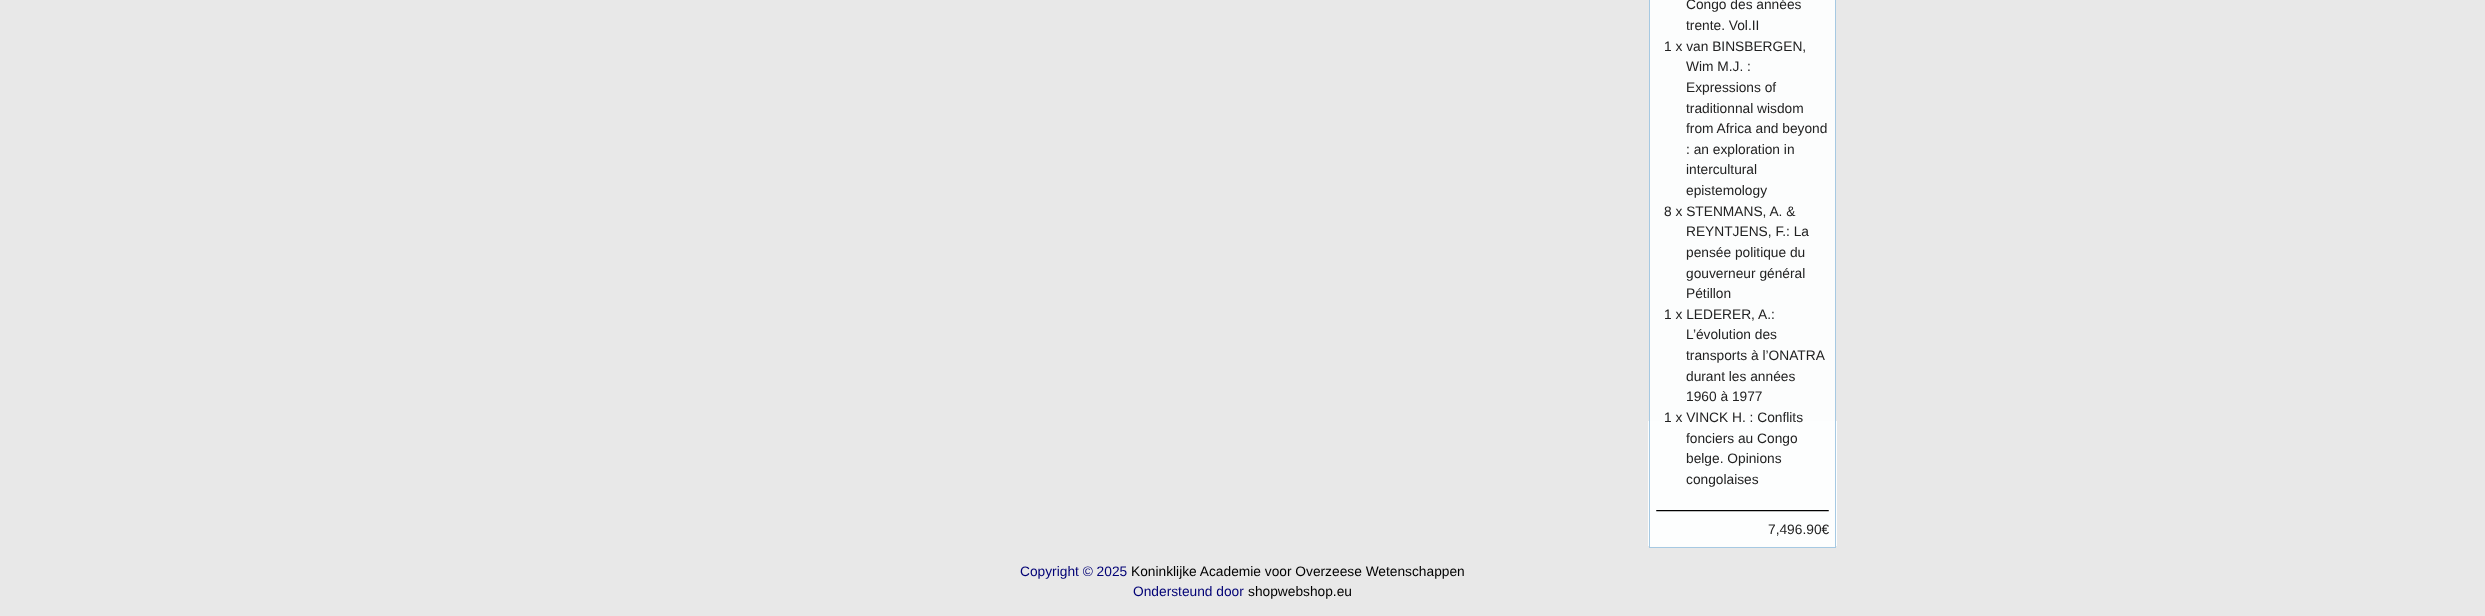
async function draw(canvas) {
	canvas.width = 2485;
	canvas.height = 616;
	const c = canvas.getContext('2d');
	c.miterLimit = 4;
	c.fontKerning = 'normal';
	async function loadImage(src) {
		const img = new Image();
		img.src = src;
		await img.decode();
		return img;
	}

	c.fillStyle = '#e8e8e8';
	c.fillRect(0, 0, 2485, 616);
	c.fillStyle = '#fcfdfd';
	c.fillRect(1650, 0, 185, 547);
	c.fillStyle = '#fdfefe';
	c.fillRect(1648, 421, 189, 125);
	c.strokeStyle = '#a6c9e2';
	c.strokeRect(1649.5, -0.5, 186, 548);
	c.font = '13.75px Liberation Sans';
	c.fillStyle = '#222';
	for (const [text, x, y] of [
		['Congo des années', 1686, 9],
		['trente. Vol.II', 1686, 30],
		['1 x van BINSBERGEN,', 1664, 51],
		['Wim M.J. :', 1686, 71],
		['Expressions of', 1686, 92],
		['traditionnal wisdom', 1686, 113],
		['from Africa and beyond', 1686, 133],
		[': an exploration in', 1686, 154],
		['intercultural', 1686, 174],
		['epistemology', 1686, 195],
		['8 x STENMANS, A. &', 1664, 216],
		['REYNTJENS, F.: La', 1686, 236],
		['pensée politique du', 1686, 257],
		['gouverneur général', 1686, 278],
		['Pétillon', 1686, 298],
		['1 x LEDERER, A.:', 1664, 319],
		['L’évolution des', 1686, 339],
		['transports à l’ONATRA', 1686, 360],
		['durant les années', 1686, 381],
		['1960 à 1977', 1686, 401],
		['1 x VINCK H. : Conflits', 1664, 422],
		['fonciers au Congo', 1686, 443],
		['belge. Opinions', 1686, 463],
		['congolaises', 1686, 484],
	]) {
		c.fillText(text, x, y);
	}
	c.drawImage(await loadImage('img1.png'), 1656, 510, 173, 2);
	c.fillText('7,496.90€', 1768, 534);
	c.fillStyle = '#000075';
	c.fillText('Copyright © 2025', 1020, 576);
	c.fillStyle = '#000';
	c.fillText('Koninklijke Academie voor Overzeese Wetenschappen', 1131, 576);
	c.fillStyle = '#000075';
	c.fillText('Ondersteund door', 1133, 596);
	c.fillStyle = '#000';
	c.fillText('shopwebshop.eu', 1248, 596);
}

draw(document.querySelector('canvas'));
